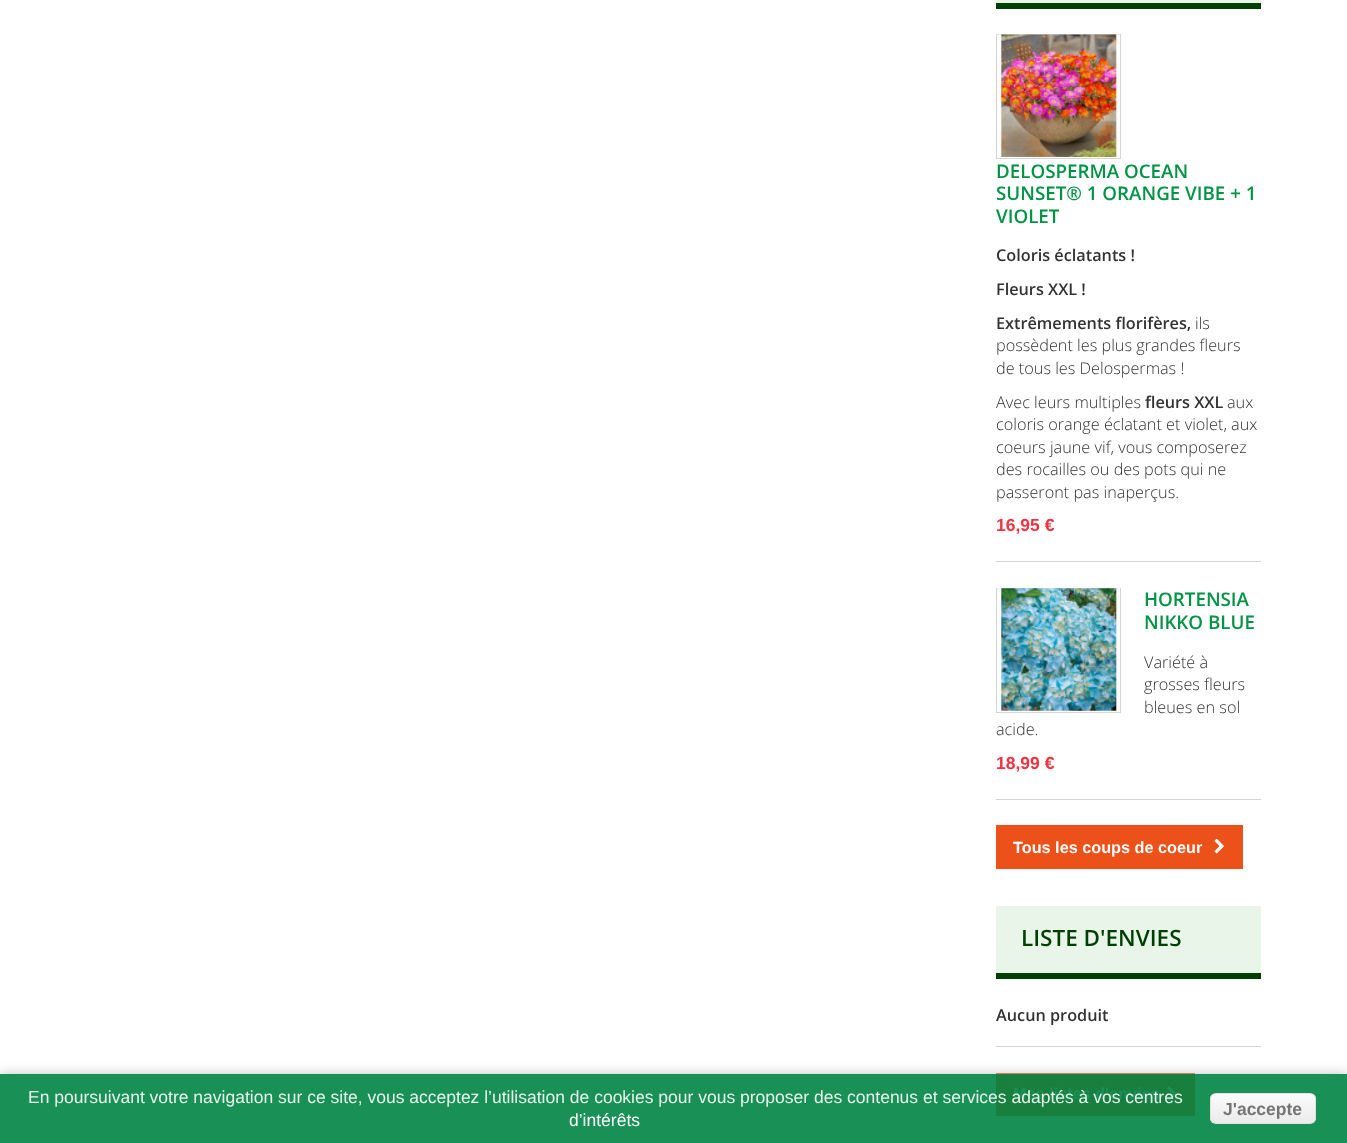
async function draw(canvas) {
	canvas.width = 1347;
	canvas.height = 1143;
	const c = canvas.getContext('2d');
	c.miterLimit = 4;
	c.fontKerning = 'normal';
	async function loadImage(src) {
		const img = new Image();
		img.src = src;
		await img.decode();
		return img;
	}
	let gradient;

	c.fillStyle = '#fff';
	c.fillRect(0, 0, 1347, 1143);
	for (const [x, y, w, h, color] of [
		[0, 1074, 1347, 69, '#199056'],
		[996, 0, 265, 3, '#e9f5e9'],
		[996, 3, 265, 6, '#003f03'],
		[996, 561, 265, 1, '#d6d4d4'],
	]) {
		c.fillStyle = color;
		c.fillRect(x, y, w, h);
	}
	c.strokeStyle = '#d6d4d4';
	c.strokeRect(996.5, 34.5, 124, 124);
	c.drawImage(await loadImage('img1.png'), 997, 34, 123, 123);
	c.font = '600 18.75px Open Sans';
	c.fillStyle = '#009444';
	for (const [text, x, y] of [
		['DELOSPERMA OCEAN', 996, 178],
		['SUNSET® 1 ORANGE VIBE + 1', 996, 200],
		['VIOLET', 996, 223],
	]) {
		c.fillText(text, x, y);
	}
	c.font = '600 16.25px Open Sans';
	c.fillStyle = '#333';
	for (const [text, x, y] of [
		['Coloris éclatants !', 996, 261],
		['Fleurs XXL !', 996, 295],
		['Extrêmements florifères,', 996, 329],
	]) {
		c.fillText(text, x, y);
	}
	c.font = '300 16.25px Open Sans';
	for (const [text, x, y] of [
		['ils', 1195, 329],
		['possèdent les plus grandes fleurs', 996, 351],
		['de tous les Delospermas !', 996, 374],
		['Avec leurs multiples', 996, 408],
	]) {
		c.fillText(text, x, y);
	}
	c.font = '600 16.25px Open Sans';
	c.fillText('fleurs XXL', 1145, 408);
	c.font = '300 16.25px Open Sans';
	for (const [text, x, y] of [
		['aux', 1227, 408],
		['coloris orange éclatant et violet, aux', 996, 430],
		['coeurs jaune vif, vous composerez', 996, 453],
		['des rocailles ou des pots qui ne', 996, 475],
		['passeront pas inaperçus.', 996, 498],
	]) {
		c.fillText(text, x, y);
	}
	c.font = 'bold 17.5px Liberation Sans';
	c.fillStyle = '#f13340';
	c.fillText('16,95 €', 996, 531);
	c.fillStyle = '#d6d4d4';
	c.fillRect(996, 799, 265, 1);
	c.strokeRect(996.5, 588.5, 124, 124);
	c.drawImage(await loadImage('img2.png'), 997, 588, 123, 123);
	c.font = '600 18.75px Open Sans';
	c.fillStyle = '#009444';
	c.fillText('HORTENSIA', 1144, 606);
	c.fillText('NIKKO BLUE', 1144, 629);
	c.font = '300 16.25px Open Sans';
	c.fillStyle = '#333';
	for (const [text, x, y] of [
		['Variété à', 1144, 668],
		['grosses fleurs', 1144, 690],
		['bleues en sol', 1144, 713],
		['acide.', 996, 735],
	]) {
		c.fillText(text, x, y);
	}
	c.font = 'bold 17.5px Liberation Sans';
	c.fillStyle = '#f13340';
	c.fillText('18,99 €', 996, 769);
	c.fillStyle = '#ec5119';
	c.fillRect(996, 825, 247, 44);
	c.font = 'bold 16.25px Liberation Sans';
	c.fillStyle = '#fff';
	c.fillText('Tous les coups de coeur', 1013, 853);
	c.drawImage(await loadImage('img3.png'), 1214, 838, 10, 16);
	c.fillStyle = '#e9f5e9';
	c.fillRect(996, 906, 265, 67);
	c.fillStyle = '#003f03';
	c.fillRect(996, 973, 265, 6);
	c.font = '600 22.5px Open Sans';
	c.fillText('LISTE D\'ENVIES', 1021, 946);
	c.fillStyle = '#d6d4d4';
	c.fillRect(996, 1046, 265, 1);
	c.font = '600 16.25px Open Sans';
	c.fillStyle = '#333';
	c.fillText('Aucun produit', 996, 1021);
	c.fillStyle = '#ec5119';
	c.fillRect(996, 1073, 199, 1);
	c.fillStyle = '#187f3f';
	c.fillRect(996, 1074, 199, 42);
	c.font = 'bold 16.25px Liberation Sans';
	c.fillStyle = '#199056';
	c.fillText('Mes listes d\'envies', 1013, 1099);
	c.drawImage(await loadImage('img4.png'), 1167, 1086, 10, 15);
	c.save();
	c.beginPath();
	c.rect(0, 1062, 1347, 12);
	c.clip();
	c.fillStyle = '#bebcbce6';
	c.filter = 'blur(6px)';
	c.beginPath();
	c.rect(0, 1074, 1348, 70);
	c.fill();
	c.filter = 'none';
	c.restore();
	c.font = '17.5px Liberation Sans';
	c.fillStyle = '#e8f4ee';
	c.fillText('En poursuivant votre navigation sur ce site, vous acceptez l’utilisation de cookies pour vous proposer des contenus et services adaptés à vos centres', 28, 1103);
	c.fillStyle = '#fff';
	c.fillText('d’intérêts', 569, 1126);
	c.save();
	c.beginPath();
	c.roundRect(1210, 1093, 106, 31, 6);
	c.clip();
	gradient = c.createLinearGradient(1211, 1094, 1211, 1123);
	gradient.addColorStop(0.05, '#fafafa');
	gradient.addColorStop(1, '#ebebeb');
	c.fillStyle = gradient;
	c.fillRect(1210, 1094, 106, 29);
	c.restore();
	c.beginPath();
	c.moveTo(1216, 1095);
	c.lineTo(1310, 1095);
	c.bezierCurveTo(1313, 1095, 1315, 1097, 1315, 1100);
	c.bezierCurveTo(1315, 1090, 1300, 1094, 1294, 1094);
	c.lineTo(1232, 1094);
	c.bezierCurveTo(1226, 1094, 1211, 1090, 1211, 1100);
	c.bezierCurveTo(1211, 1097, 1213, 1095, 1216, 1095);
	c.closePath();
	c.fill();
	c.beginPath();
	c.roundRect(1210.5, 1093.5, 105, 30, 5.5);
	c.strokeStyle = '#e0e0e0';
	c.stroke();
	c.font = 'bold 17.5px Liberation Sans';
	c.fillStyle = '#757575';
	c.fillText('J\'accepte', 1223, 1115);
}

draw(document.querySelector('canvas'));
